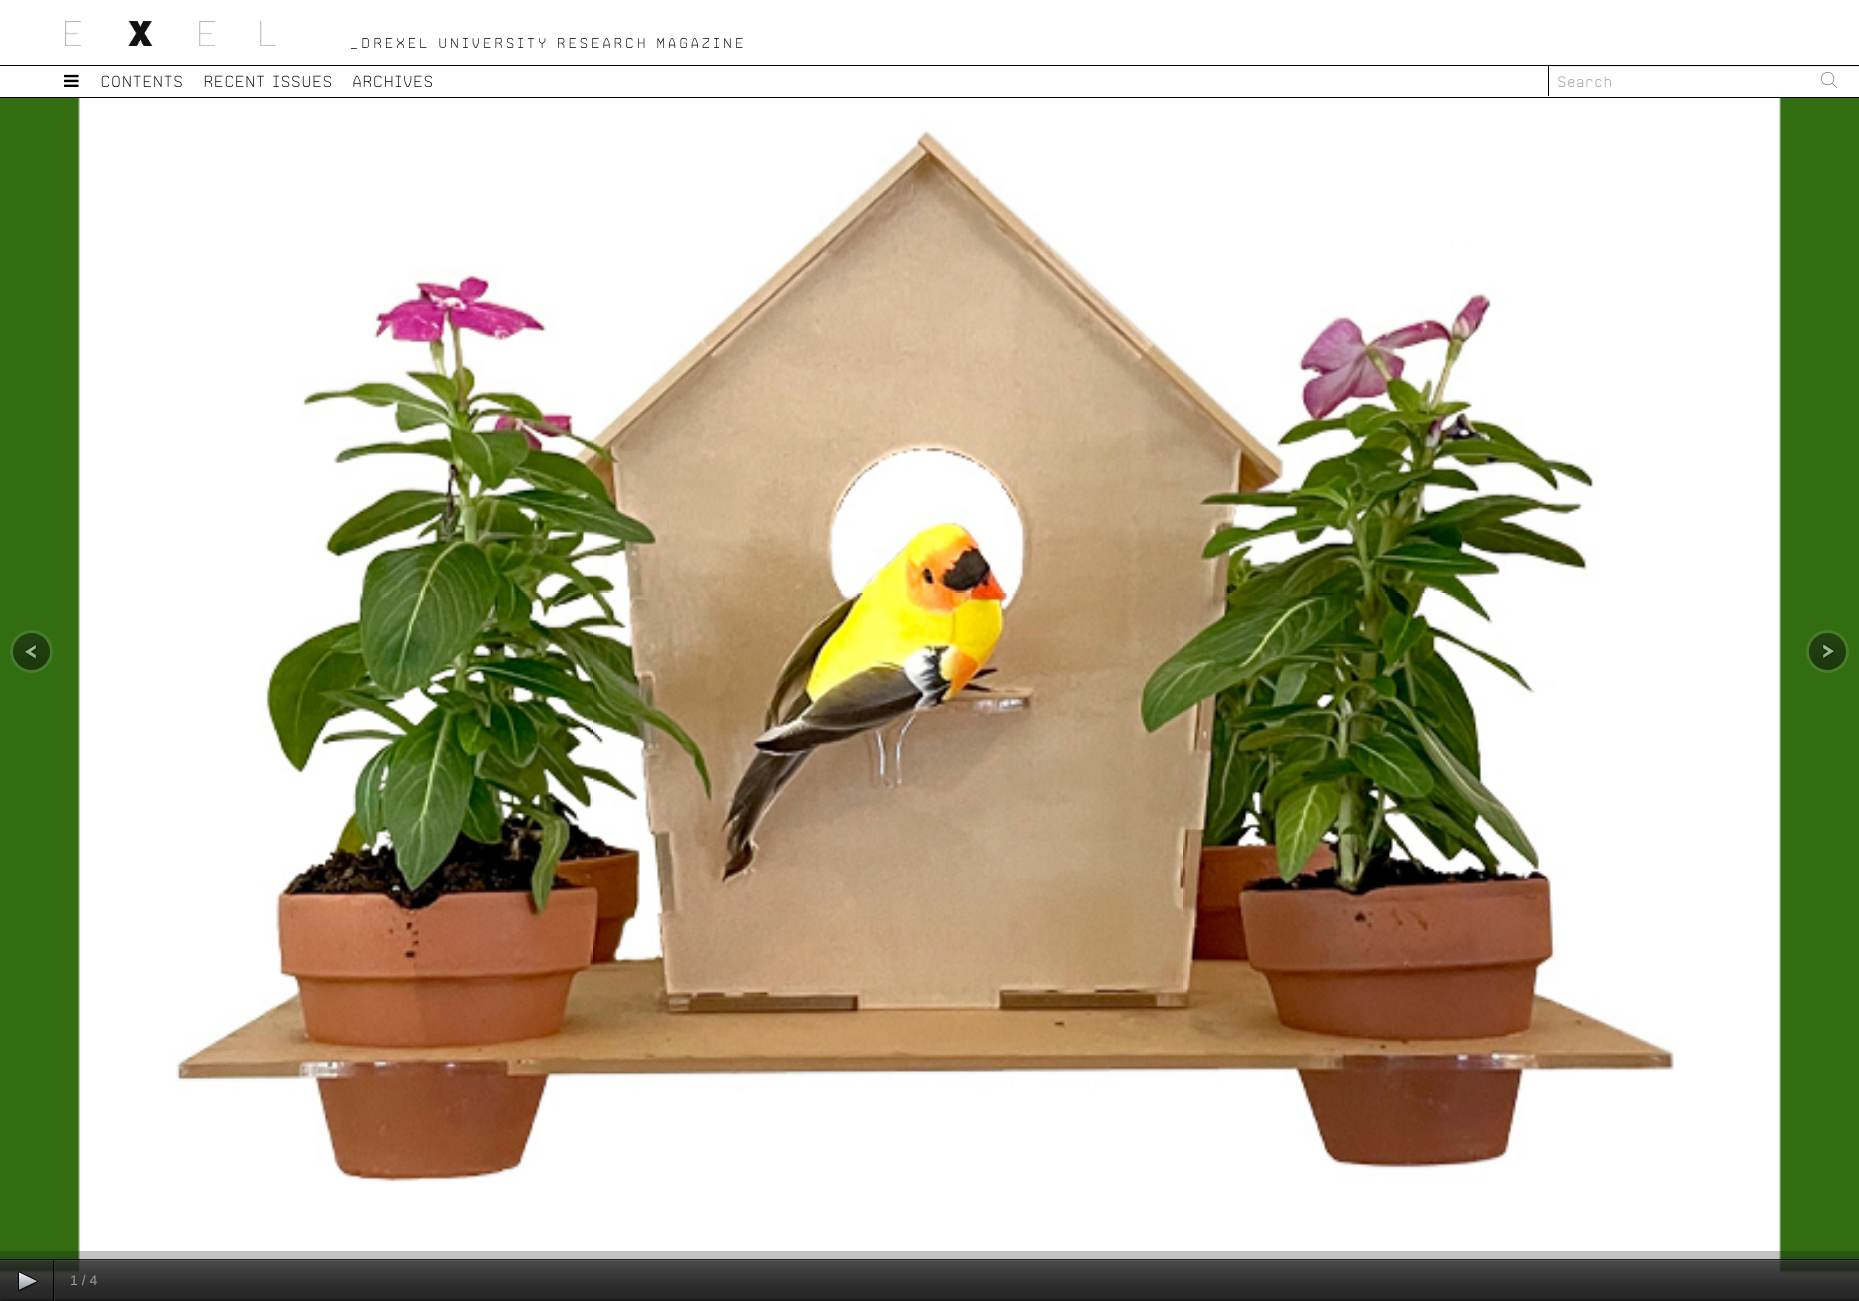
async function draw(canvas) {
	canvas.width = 1859;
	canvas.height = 1301;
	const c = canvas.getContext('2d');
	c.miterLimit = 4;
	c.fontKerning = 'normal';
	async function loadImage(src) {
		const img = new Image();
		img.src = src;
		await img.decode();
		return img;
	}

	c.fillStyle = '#fff';
	c.fillRect(0, 0, 1859, 1301);
	c.fillStyle = '#000';
	c.fillRect(0, 65, 1859, 1);
	c.drawImage(await loadImage('img1.png'), 65, 21, 211, 25);
	c.letterSpacing = '4px';
	c.font = '15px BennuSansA';
	c.fillText('_DREXEL UNIVERSITY RESEARCH MAGAZINE', 350, 48);
	c.fillRect(0, 97, 1859, 1);
	c.drawImage(await loadImage('img2.png'), 64, 74, 15, 13);
	c.letterSpacing = '2px';
	c.font = '17px BennuSansA';
	for (const [text, x, y] of [
		['CONTENTS', 101, 87],
		['RECENT ISSUES', 204, 87],
		['ARCHIVES', 353, 87],
	]) {
		c.fillText(text, x, y);
	}
	c.fillRect(1548, 66, 1, 30);
	c.fillStyle = '#ececec';
	c.fillRect(1549, 66, 310, 1);
	c.font = '16px BennuSansA';
	c.fillStyle = '#999';
	c.fillText('Search', 1558, 87);
	c.drawImage(await loadImage('img3.png'), 1821, 72, 16, 16);
	c.drawImage(await loadImage('img4.png'), 0, 98, 1859, 1203);
	c.drawImage(await loadImage('img5.png'), 10, 630, 43, 43);
	c.drawImage(await loadImage('img6.png'), 1806, 630, 43, 43);
	c.fillStyle = '#10101040';
	c.fillRect(0, 1251, 1859, 8);
	c.fillStyle = '#000';
	c.filter = 'blur(2px)';
	c.beginPath();
	c.rect(0, 1301, 1859, 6);
	c.fill();
	c.filter = 'none';
	c.drawImage(await loadImage('img7.png'), 0, 1259, 1859, 42);
	c.fillStyle = '#333';
	c.fillRect(54, 1260, 1, 41);
	c.drawImage(await loadImage('img8.png'), 18, 1260, 36, 41);
	c.letterSpacing = '0px';
	c.font = '14px Liberation Sans';
	c.fillStyle = '#999';
	c.fillText('1 / 4', 70, 1285);
}

draw(document.querySelector('canvas'));
